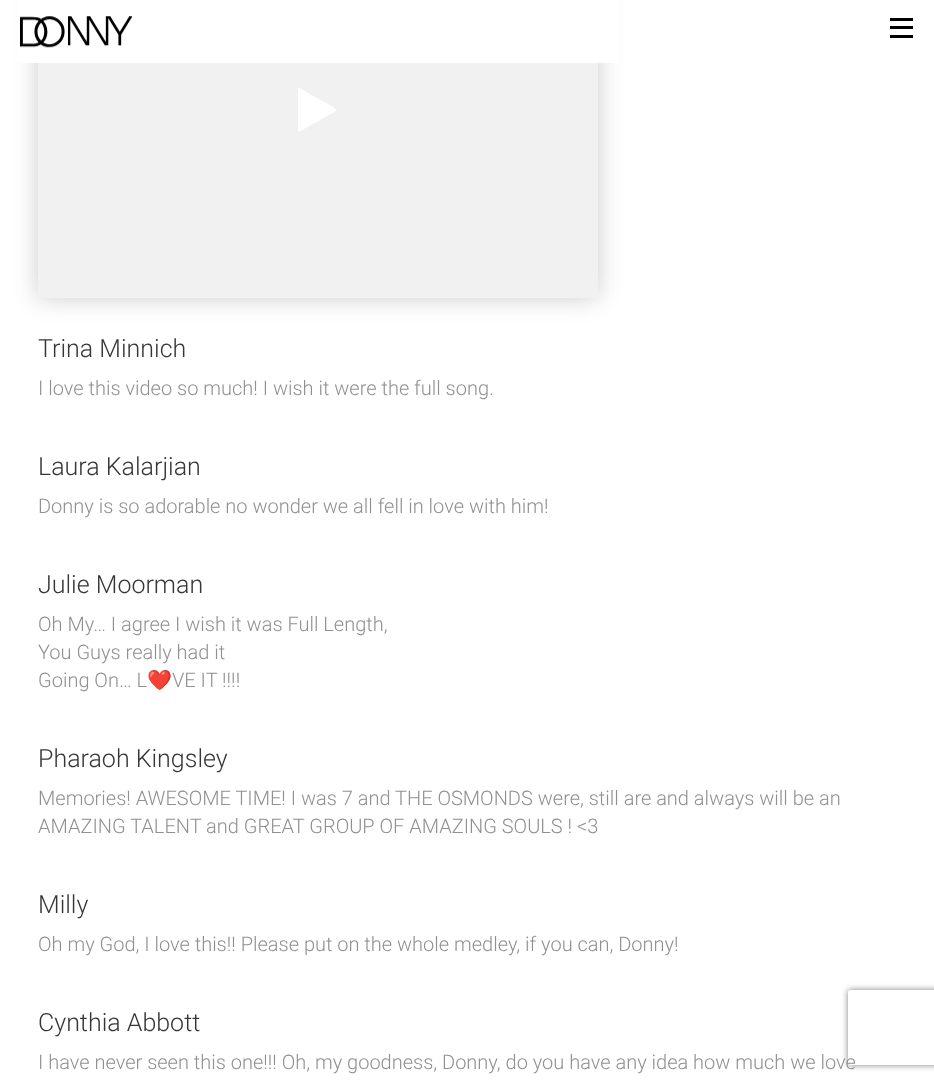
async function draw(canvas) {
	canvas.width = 934;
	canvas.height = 1082;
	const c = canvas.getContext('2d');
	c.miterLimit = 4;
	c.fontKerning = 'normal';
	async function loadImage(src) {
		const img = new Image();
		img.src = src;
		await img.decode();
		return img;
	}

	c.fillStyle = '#fff';
	c.fillRect(0, 0, 934, 1082);
	c.fillStyle = '#00000033';
	c.filter = 'blur(12.5px)';
	c.beginPath();
	c.rect(38, -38, 560, 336);
	c.fill();
	c.filter = 'none';
	c.fillStyle = '#fff';
	c.fillRect(17, 0, 602, 63);
	c.drawImage(await loadImage('img1.png'), 20, 16, 113, 32);
	for (const [x, y, w, h, color] of [
		[890, 18, 23, 3, '#000'],
		[890, 26, 23, 3, '#000'],
		[890, 35, 23, 3, '#000'],
		[38, 63, 560, 235, '#f1f1f1'],
	]) {
		c.fillStyle = color;
		c.fillRect(x, y, w, h);
	}
	c.fillStyle = '#fff';
	c.beginPath();
	c.moveTo(336, 111);
	c.lineTo(306, 128);
	c.bezierCurveTo(305, 128, 299, 133, 298, 131);
	c.lineTo(298, 89);
	c.lineTo(299, 88);
	c.lineTo(330, 105);
	c.lineTo(337, 110);
	c.closePath();
	c.fill();
	c.font = '300 25px Roboto';
	c.fillStyle = '#363636';
	c.fillText('Trina Minnich', 38, 357);
	c.font = '300 20px Roboto';
	c.fillStyle = '#909090';
	c.fillText('I love this video so much! I wish it were the full song.', 38, 395);
	c.font = '300 25px Roboto';
	c.fillStyle = '#363636';
	c.fillText('Laura Kalarjian', 38, 475);
	c.font = '300 20px Roboto';
	c.fillStyle = '#909090';
	c.fillText('Donny is so adorable no wonder we all fell in love with him!', 38, 513);
	c.font = '300 25px Roboto';
	c.fillStyle = '#363636';
	c.fillText('Julie Moorman', 38, 593);
	c.font = '300 20px Roboto';
	c.fillStyle = '#909090';
	for (const [text, x, y] of [
		['Oh My… I agree I wish it was Full Length,', 38, 631],
		['You Guys really had it', 38, 659],
		['Going On… L', 38, 687],
	]) {
		c.fillText(text, x, y);
	}
	c.font = '20px Noto Color Emoji';
	c.fillText('❤️', 147, 687);
	c.font = '300 20px Roboto';
	c.fillText('VE IT !!!!', 172, 687);
	c.font = '300 25px Roboto';
	c.fillStyle = '#363636';
	c.fillText('Pharaoh Kingsley', 38, 767);
	c.font = '300 20px Roboto';
	c.fillStyle = '#909090';
	c.fillText('Memories! AWESOME TIME! I was 7 and THE OSMONDS were, still are and always will be an', 38, 805);
	c.fillText('AMAZING TALENT and GREAT GROUP OF AMAZING SOULS ! <3', 38, 833);
	c.font = '300 25px Roboto';
	c.fillStyle = '#363636';
	c.fillText('Milly', 38, 913);
	c.font = '300 20px Roboto';
	c.fillStyle = '#909090';
	c.fillText('Oh my God, I love this!! Please put on the whole medley, if you can, Donny!', 38, 951);
	c.font = '300 25px Roboto';
	c.fillStyle = '#363636';
	c.fillText('Cynthia Abbott', 38, 1031);
	c.font = '300 20px Roboto';
	c.fillStyle = '#909090';
	c.fillText('I have never seen this one!!! Oh, my goodness, Donny, do you have any idea how much we love', 38, 1069);
	c.save();
	c.beginPath();
	c.moveTo(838, 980);
	c.lineTo(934, 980);
	c.lineTo(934, 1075);
	c.lineTo(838, 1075);
	c.closePath();
	c.moveTo(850.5, 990);
	c.lineTo(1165.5, 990);
	c.bezierCurveTo(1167, 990, 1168, 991, 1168, 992.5);
	c.lineTo(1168, 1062.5);
	c.bezierCurveTo(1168, 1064, 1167, 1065, 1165.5, 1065);
	c.lineTo(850.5, 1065);
	c.bezierCurveTo(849, 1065, 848, 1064, 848, 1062.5);
	c.lineTo(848, 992.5);
	c.bezierCurveTo(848, 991, 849, 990, 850.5, 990);
	c.closePath();
	c.clip('evenodd');
	c.fillStyle = '#808080';
	c.filter = 'blur(3px)';
	c.beginPath();
	c.roundRect(848, 990, 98, 75, 2.5);
	c.fill();
	c.filter = 'none';
	c.restore();
}

draw(document.querySelector('canvas'));
